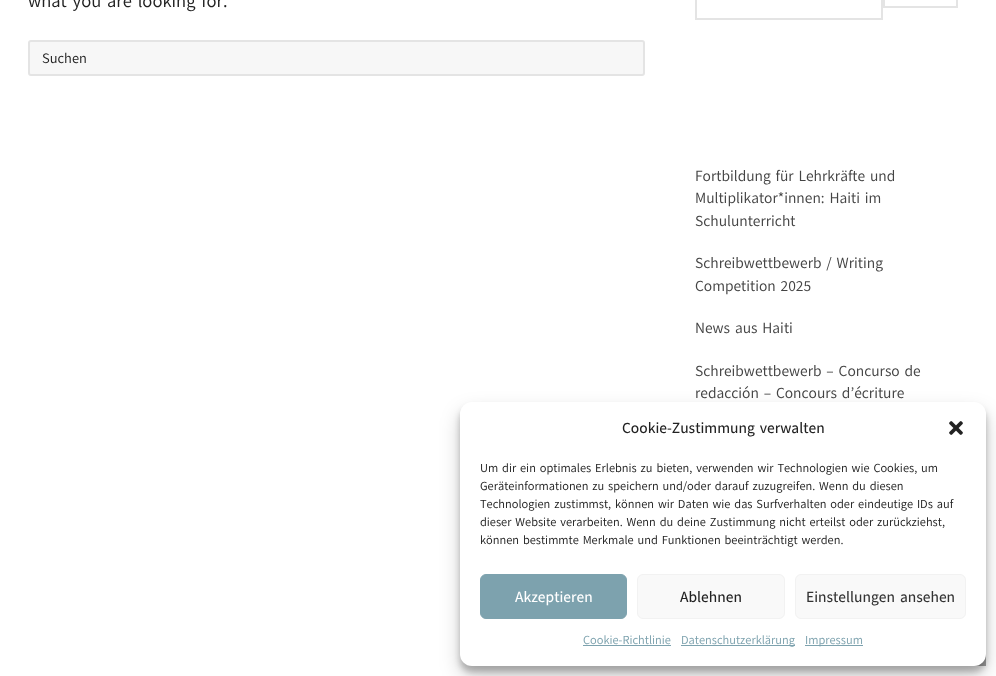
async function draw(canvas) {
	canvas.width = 996;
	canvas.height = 676;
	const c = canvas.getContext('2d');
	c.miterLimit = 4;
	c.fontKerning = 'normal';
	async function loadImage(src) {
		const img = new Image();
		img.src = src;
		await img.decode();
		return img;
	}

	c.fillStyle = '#fff';
	c.fillRect(0, 0, 996, 676);
	c.font = '18px Akatab';
	c.fillStyle = '#222';
	c.fillText('what you are looking for.', 28, 7);
	c.fillStyle = '#f7f7f7';
	c.beginPath();
	c.roundRect(29, 41, 615, 34, 2);
	c.fill();
	c.strokeStyle = '#e4e4e4';
	c.lineWidth = 2;
	c.stroke();
	c.font = '14px Akatab';
	c.fillStyle = '#222';
	c.fillText('Suchen', 42, 63);
	c.strokeRect(696, -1, 186, 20);
	c.strokeRect(884, -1, 73, 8);
	c.font = '15px Akatab';
	c.fillStyle = '#444';
	for (const [text, x, y] of [
		['Fortbildung für Lehrkräfte und', 695, 181],
		['Multiplikator*innen: Haiti im', 695, 203],
		['Schulunterricht', 695, 226],
		['Schreibwettbewerb / Writing', 695, 268],
		['Competition 2025', 695, 291],
		['News aus Haiti', 695, 333],
		['Schreibwettbewerb – Concurso de', 695, 376],
		['redacción – Concours d’écriture', 695, 398],
	]) {
		c.fillText(text, x, y);
	}
	c.fillStyle = '#14141466';
	c.fillRect(974, 654, 12, 12);
	c.fillStyle = '#0000003b';
	c.filter = 'blur(3px)';
	c.beginPath();
	c.roundRect(460, 408, 526, 264, 12);
	c.fill();
	c.filter = 'none';
	c.fillStyle = '#00000030';
	c.filter = 'blur(10px)';
	c.beginPath();
	c.roundRect(460, 412, 526, 264, 12);
	c.fill();
	c.filter = 'none';
	c.fillStyle = '#fff';
	c.beginPath();
	c.roundRect(460, 402, 526, 264, 12);
	c.fill();
	c.font = '500 15px Akatab';
	c.fillStyle = '#222';
	c.fillText('Cookie-Zustimmung verwalten', 622, 433);
	c.drawImage(await loadImage('img1.png'), 949, 421, 14, 14);
	c.font = '12px Akatab';
	for (const [text, x, y] of [
		['Um dir ein optimales Erlebnis zu bieten, verwenden wir Technologien wie Cookies, um', 480, 472],
		['Geräteinformationen zu speichern und/oder darauf zuzugreifen. Wenn du diesen', 480, 490],
		['Technologien zustimmst, können wir Daten wie das Surfverhalten oder eindeutige IDs auf', 480, 508],
		['dieser Website verarbeiten. Wenn du deine Zustimmung nicht erteilst oder zurückziehst,', 480, 526],
		['können bestimmte Merkmale und Funktionen beeinträchtigt werden.', 480, 544],
	]) {
		c.fillText(text, x, y);
	}
	c.fillStyle = '#7da2ae';
	c.beginPath();
	c.roundRect(480.5, 574.5, 146, 44, 5.5);
	c.fill();
	c.strokeStyle = '#7da2ae';
	c.lineWidth = 1;
	c.stroke();
	c.font = '500 15px Akatab';
	c.fillStyle = '#fff';
	c.fillText('Akzeptieren', 515, 602);
	c.fillStyle = '#f9f9f9';
	c.beginPath();
	c.roundRect(637.5, 574.5, 147, 44, 5.5);
	c.fill();
	c.strokeStyle = '#f2f2f2';
	c.stroke();
	c.fillStyle = '#222';
	c.fillText('Ablehnen', 680, 602);
	c.fillStyle = '#f9f9f9';
	c.beginPath();
	c.roundRect(795.5, 574.5, 170, 44, 5.5);
	c.fill();
	c.stroke();
	c.fillStyle = '#333';
	c.fillText('Einstellungen ansehen', 806, 602);
	c.font = '12px Akatab';
	c.fillStyle = '#7da2ae';
	c.fillText('Cookie-Richtlinie', 583, 644);
	c.fillRect(583, 645, 88, 1);
	c.fillRect(681, 645, 114, 1);
	c.fillText('Datenschutzerklärung', 681, 644);
	c.fillRect(805, 645, 58, 1);
	c.fillText('Impressum', 805, 644);
}

draw(document.querySelector('canvas'));
